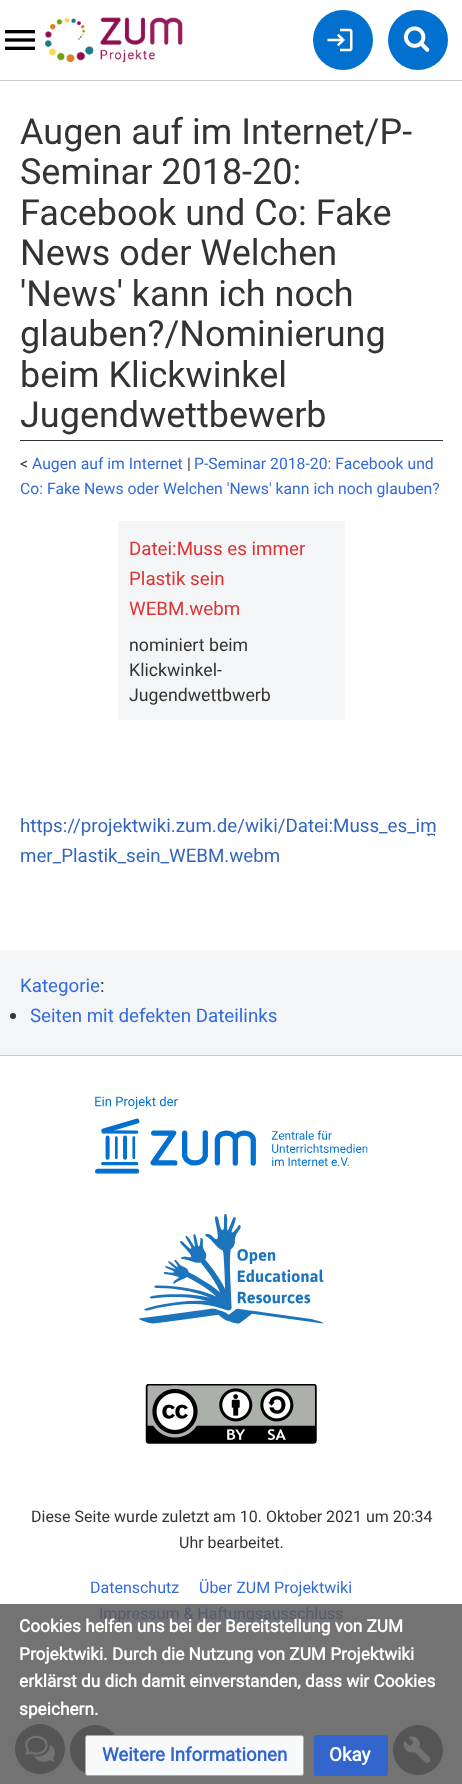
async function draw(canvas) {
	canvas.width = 462;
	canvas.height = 1784;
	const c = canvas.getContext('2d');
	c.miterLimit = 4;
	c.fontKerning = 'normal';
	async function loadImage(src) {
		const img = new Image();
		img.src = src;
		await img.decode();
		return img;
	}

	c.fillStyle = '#fff';
	c.fillRect(0, 0, 462, 1784);
	c.fillStyle = '#737373';
	c.fillRect(0, 1604, 462, 180);
	c.drawImage(await loadImage('img1.png'), 45, 17, 138, 46);
	c.fillStyle = '#0170ce';
	c.beginPath();
	c.arc(343, 40, 30, 0, 2 * Math.PI);
	c.fill();
	c.drawImage(await loadImage('img2.png'), 327, 28, 26, 24);
	c.beginPath();
	c.arc(418, 40, 30, 0, 2 * Math.PI);
	c.fill();
	c.drawImage(await loadImage('img3.png'), 403, 26, 27, 26);
	c.drawImage(await loadImage('img4.png'), 5, 30, 30, 20);
	for (const [x, y, w, h, color] of [
		[0, 80, 462, 1, '#c8ccd1'],
		[0, 1055, 462, 1, '#c8ccd1'],
		[20, 440, 423, 1, '#333'],
	]) {
		c.fillStyle = color;
		c.fillRect(x, y, w, h);
	}
	c.font = '36px Roboto';
	for (const [text, x, y] of [
		['Augen auf im Internet/P-', 20, 144],
		['Seminar 2018-20:', 20, 184],
		['Facebook und Co: Fake', 20, 225],
		['News oder Welchen', 20, 265],
		['\'News\' kann ich noch', 20, 306],
		['glauben?/Nominierung', 20, 346],
		['beim Klickwinkel', 20, 387],
		['Jugendwettbewerb', 20, 427],
	]) {
		c.fillText(text, x, y);
	}
	c.font = '15.75px Roboto';
	c.fillText('<', 20, 469);
	c.fillStyle = '#336bda';
	c.fillText('Augen auf im Internet', 32, 469);
	c.fillStyle = '#333';
	c.fillText(' |', 183, 469);
	c.fillStyle = '#336bda';
	c.fillText('P-Seminar 2018-20: Facebook und', 194, 469);
	c.fillText('Co: Fake News oder Welchen \'News\' kann ich noch glauben?', 20, 494);
	c.fillStyle = '#f4f5f6';
	c.fillRect(118, 521, 227, 199);
	c.font = '18.75px Roboto';
	c.fillStyle = '#d33';
	for (const [text, x, y] of [
		['Datei:Muss es immer', 129, 555],
		['Plastik sein', 129, 585],
		['WEBM.webm', 129, 615],
	]) {
		c.fillText(text, x, y);
	}
	c.font = '17.75px Roboto';
	c.fillStyle = '#333';
	for (const [text, x, y] of [
		['nominiert beim', 129, 651],
		['Klickwinkel-', 129, 676],
		['Jugendwettbwerb', 129, 701],
	]) {
		c.fillText(text, x, y);
	}
	c.drawImage(await loadImage('img5.png'), 426, 833, 9, 3);
	c.font = '18.75px Roboto';
	c.fillStyle = '#36b';
	c.fillText('https://projektwiki.zum.de/wiki/Datei:Muss_es_im', 20, 832);
	c.fillText('mer_Plastik_sein_WEBM.webm', 20, 862);
	c.fillStyle = '#f4f5f6';
	c.fillRect(0, 950, 462, 105);
	c.fillStyle = '#336bda';
	c.fillText('Kategorie', 20, 992);
	c.fillStyle = '#333';
	c.fillText(':', 100, 992);
	c.beginPath();
	c.arc(13, 1016, 3, 0, 2 * Math.PI);
	c.fill();
	c.fillStyle = '#336bda';
	c.fillText('Seiten mit defekten Dateilinks', 30, 1022);
	c.font = 'bold 17.25px Roboto';
	c.fillStyle = '#fff';
	for (const [text, x, y] of [
		['Cookies helfen uns bei der Bereitstellung von ZUM', 19, 1632],
		['Projektwiki. Durch die Nutzung von ZUM Projektwiki', 19, 1660],
		['erklärst du dich damit einverstanden, dass wir Cookies', 19, 1687],
		['speichern.', 19, 1715],
	]) {
		c.fillText(text, x, y);
	}
	c.fillStyle = '#4d4d4dcc';
	c.beginPath();
	c.arc(95, 1750, 25, 0, 2 * Math.PI);
	c.fill();
	c.fillStyle = '#f8f9fa';
	c.beginPath();
	c.roundRect(85.5, 1735.5, 218, 40, 2);
	c.fill();
	c.strokeStyle = '#a2a9b1';
	c.stroke();
	c.font = 'bold 18.75px Roboto';
	c.fillStyle = '#36c';
	c.fillText('Weitere Informationen', 102, 1761);
	c.beginPath();
	c.roundRect(314.5, 1735.5, 73, 40, 2);
	c.fill();
	c.strokeStyle = '#36c';
	c.stroke();
	c.fillStyle = '#fff';
	c.fillText('Okay', 329, 1761);
	c.fillStyle = '#4d4d4dcc';
	c.beginPath();
	c.arc(40, 1749, 25, 0, 2 * Math.PI);
	c.fill();
	c.drawImage(await loadImage('img6.png'), 25, 1735, 30, 27);
	c.beginPath();
	c.arc(418, 1750, 25, 0, 2 * Math.PI);
	c.fill();
	c.drawImage(await loadImage('img7.png'), 403, 1736, 28, 27);
	c.drawImage(await loadImage('img8.png'), 95, 1096, 273, 78);
	c.drawImage(await loadImage('img9.png'), 139, 1214, 185, 110);
	c.drawImage(await loadImage('img10.png'), 145, 1384, 172, 60);
	c.font = '16px Roboto';
	c.fillStyle = '#333';
	c.fillText('Diese Seite wurde zuletzt am 10. Oktober 2021 um 20:34', 31, 1522);
	c.fillText('Uhr bearbeitet.', 179, 1548);
	c.fillStyle = '#336bda';
	c.fillText('Datenschutz', 90, 1593);
	c.fillText('Über ZUM Projektwiki', 199, 1593);
	c.fillStyle = '#545d6d';
	c.fillText('Impressum & Haftungsausschluss', 99, 1619);
}

draw(document.querySelector('canvas'));
